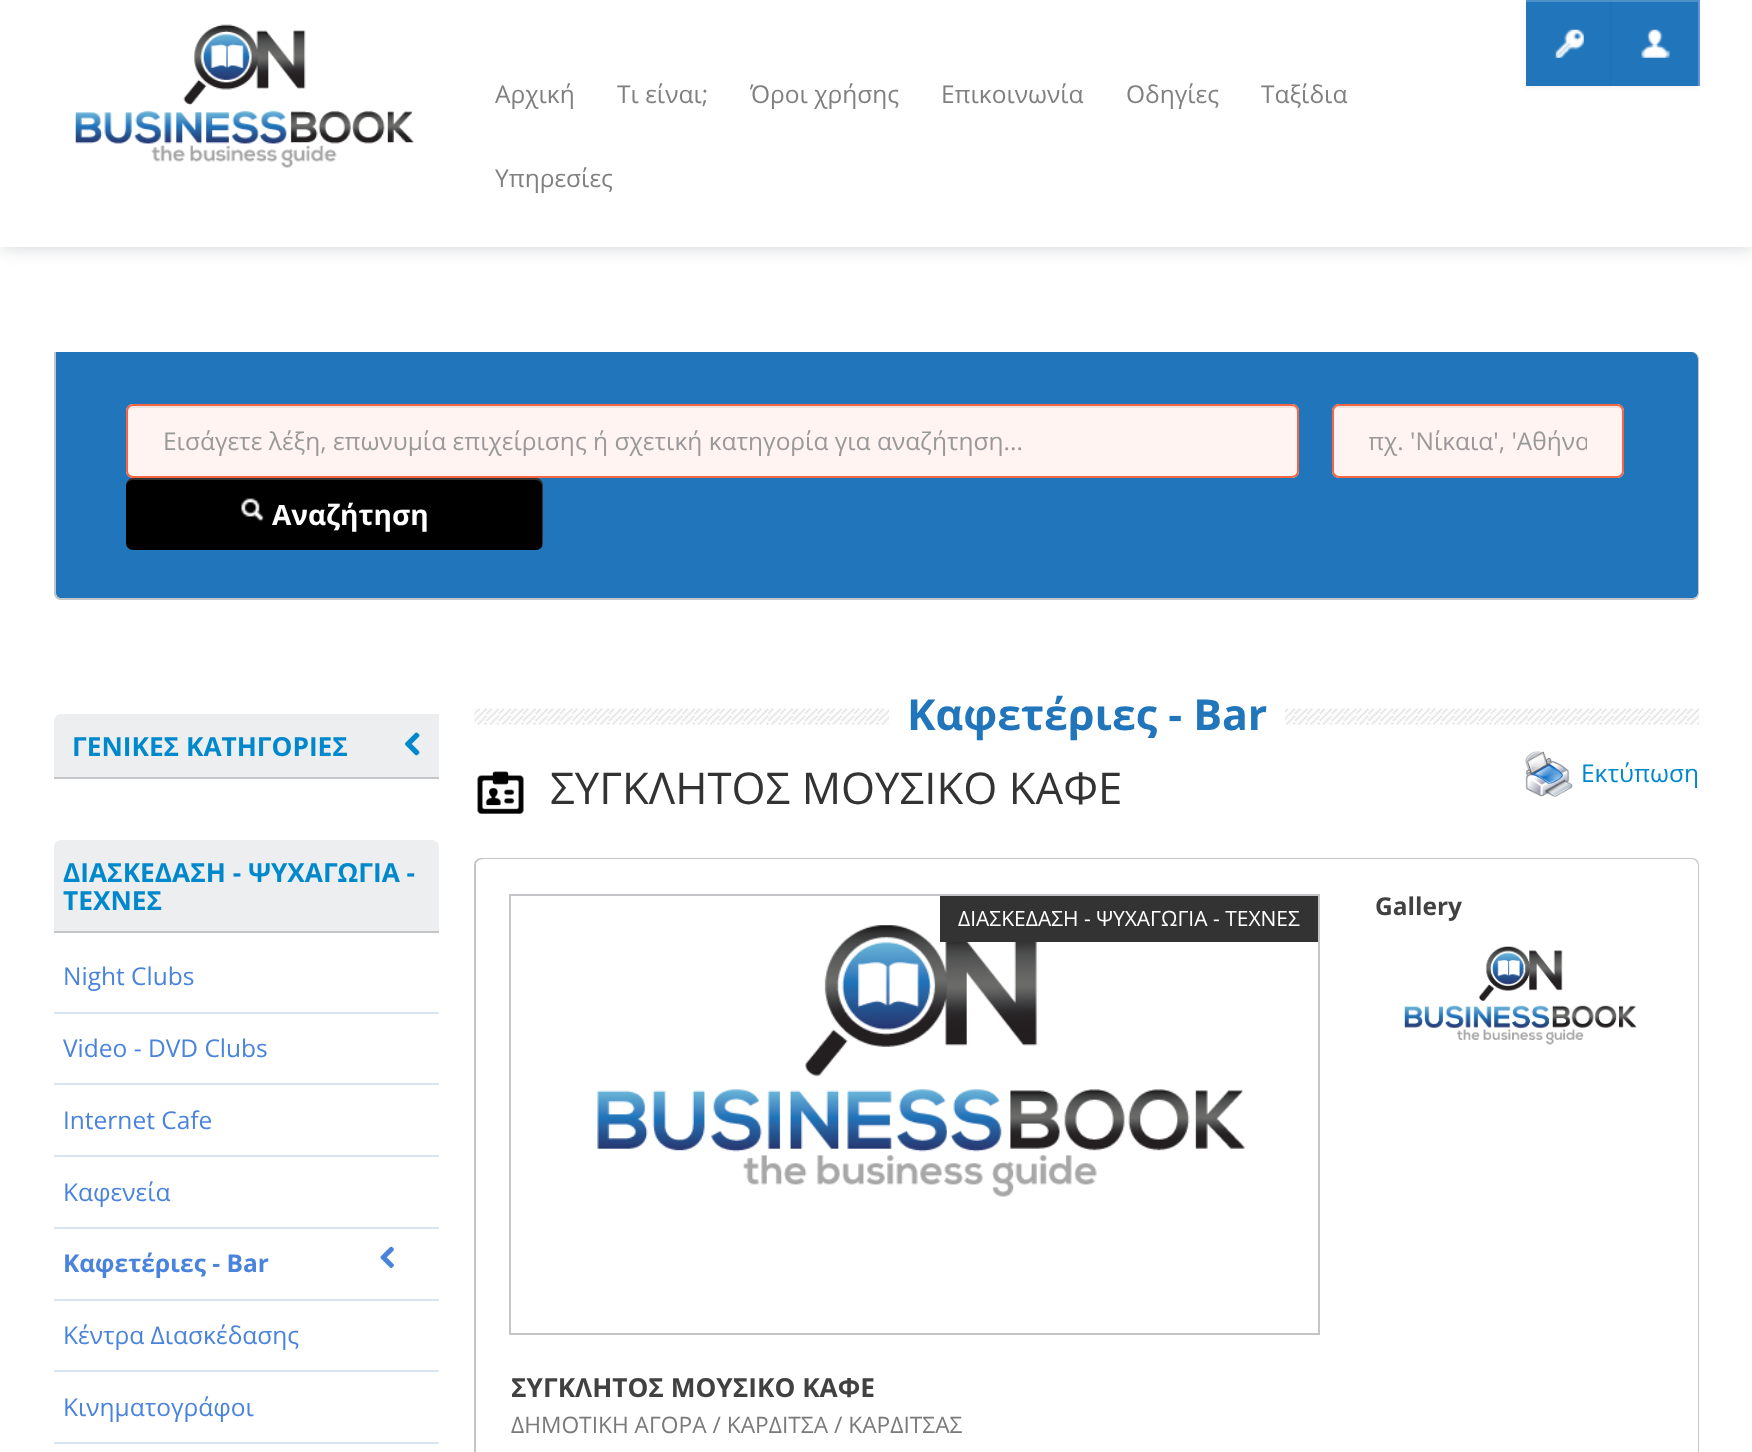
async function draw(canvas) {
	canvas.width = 1752;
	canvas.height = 1452;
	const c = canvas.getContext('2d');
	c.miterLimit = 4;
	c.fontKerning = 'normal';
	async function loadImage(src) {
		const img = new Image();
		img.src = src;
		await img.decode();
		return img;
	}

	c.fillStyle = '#fff';
	c.fillRect(0, 0, 1752, 1452);
	c.fillStyle = '#d0d2d5';
	c.filter = 'blur(9px)';
	c.beginPath();
	c.rect(0, 0, 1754, 247);
	c.fill();
	c.filter = 'none';
	c.fillStyle = '#fff';
	c.fillRect(0, 0, 1752, 247);
	c.drawImage(await loadImage('img1.png'), 75, 24, 340, 144);
	c.font = '24.5px Open Sans';
	c.fillStyle = '#808080';
	for (const [text, x, y] of [
		['Αρχική', 495, 103],
		['Τι είναι;', 617, 103],
		['Όροι χρήσης', 750, 103],
		['Επικοινωνία', 941, 103],
		['Οδηγίες', 1126, 103],
		['Ταξίδια', 1261, 103],
		['Υπηρεσίες', 495, 187],
	]) {
		c.fillText(text, x, y);
	}
	c.fillStyle = '#6395de';
	c.fillRect(1698, 0, 2, 86);
	c.fillStyle = '#0000000d';
	c.filter = 'blur(2px)';
	c.beginPath();
	c.rect(1526, 2, 86, 86);
	c.fill();
	c.filter = 'none';
	c.fillStyle = '#2075bb';
	c.fillRect(1526, 2, 86, 84);
	c.drawImage(await loadImage('img2.png'), 1555, 29, 29, 29);
	c.fillStyle = '#4d91c9';
	c.fillRect(1526, 0, 86, 2);
	c.fillStyle = '#0000000d';
	c.filter = 'blur(2px)';
	c.beginPath();
	c.rect(1612, 2, 86, 86);
	c.fill();
	c.filter = 'none';
	c.fillStyle = '#2075bb';
	c.fillRect(1612, 2, 86, 84);
	c.drawImage(await loadImage('img3.png'), 1641, 29, 29, 29);
	c.fillStyle = '#4d91c9';
	c.fillRect(1612, 0, 86, 2);
	c.fillStyle = '#2075bb';
	c.beginPath();
	c.moveTo(56, 352);
	c.lineTo(1692, 352);
	c.bezierCurveTo(1695, 352, 1698, 355, 1698, 359);
	c.lineTo(1698, 593);
	c.bezierCurveTo(1698, 596, 1695, 598, 1692, 598);
	c.lineTo(61, 598);
	c.bezierCurveTo(58, 598, 56, 596, 56, 593);
	c.closePath();
	c.fill();
	c.fillStyle = '#c3c5c9';
	c.beginPath();
	c.moveTo(54, 352);
	c.lineTo(1692, 352);
	c.bezierCurveTo(1696, 352, 1699, 355, 1699, 359);
	c.lineTo(1699, 593);
	c.bezierCurveTo(1699, 597, 1696, 600, 1692, 600);
	c.lineTo(61, 600);
	c.bezierCurveTo(57, 600, 54, 597, 54, 593);
	c.closePath();
	c.moveTo(56, 352);
	c.lineTo(1692, 352);
	c.bezierCurveTo(1695, 352, 1698, 355, 1698, 359);
	c.lineTo(1698, 593);
	c.bezierCurveTo(1698, 596, 1695, 598, 1692, 598);
	c.lineTo(61, 598);
	c.bezierCurveTo(58, 598, 56, 596, 56, 593);
	c.closePath();
	c.fill('evenodd');
	c.fillStyle = '#fff4f1';
	c.beginPath();
	c.roundRect(126, 404, 1173, 74, 7);
	c.fill();
	c.fillStyle = '#ece2df';
	c.beginPath();
	c.moveTo(133, 408);
	c.lineTo(1292, 408);
	c.bezierCurveTo(1294, 408, 1297, 410, 1297, 413);
	c.lineTo(1297, 411);
	c.bezierCurveTo(1297, 408, 1295, 406, 1292, 406);
	c.lineTo(133, 406);
	c.bezierCurveTo(130, 406, 128, 408, 128, 411);
	c.lineTo(128, 413);
	c.bezierCurveTo(128, 410, 130, 408, 133, 408);
	c.closePath();
	c.fill();
	c.beginPath();
	c.roundRect(127, 405, 1171, 72, 6);
	c.strokeStyle = '#f66442';
	c.lineWidth = 2;
	c.stroke();
	c.fillStyle = '#999';
	c.fillText('Εισάγετε λέξη, επωνυμία επιχείρισης ή σχετική κατηγορία για αναζήτηση...', 163, 450);
	c.fillStyle = '#fff4f1';
	c.beginPath();
	c.roundRect(1332, 404, 292, 74, 7);
	c.fill();
	c.fillStyle = '#ece2df';
	c.beginPath();
	c.moveTo(1339, 408);
	c.lineTo(1617, 408);
	c.bezierCurveTo(1620, 408, 1622, 410, 1622, 413);
	c.bezierCurveTo(1622, 410, 1621, 406, 1617, 406);
	c.lineTo(1338, 406);
	c.bezierCurveTo(1334, 407, 1334, 410, 1334, 413);
	c.bezierCurveTo(1334, 410, 1336, 408, 1339, 408);
	c.closePath();
	c.fill();
	c.beginPath();
	c.roundRect(1333, 405, 290, 72, 6);
	c.stroke();
	c.save();
	c.beginPath();
	c.rect(1369, 424, 218, 33);
	c.clip();
	c.fillStyle = '#999';
	c.fillText('πχ. \'Νίκαια\', \'Αθήνα', 1368, 450);
	c.restore();
	c.fillStyle = '#000';
	c.beginPath();
	c.roundRect(126, 478, 417, 72, 7);
	c.fill();
	c.fillStyle = '#ffffff33';
	c.beginPath();
	c.moveTo(133, 480);
	c.lineTo(536, 480);
	c.bezierCurveTo(539, 480, 542, 483, 542, 486);
	c.lineTo(542, 544);
	c.bezierCurveTo(542, 546, 542, 547, 541, 548);
	c.bezierCurveTo(542, 547, 543, 545, 543, 543);
	c.lineTo(543, 485);
	c.bezierCurveTo(543, 481, 540, 478, 536, 478);
	c.lineTo(133, 478);
	c.bezierCurveTo(129, 478, 126, 481, 126, 485);
	c.lineTo(126, 486);
	c.bezierCurveTo(126, 483, 129, 480, 133, 480);
	c.closePath();
	c.fill();
	c.drawImage(await loadImage('img4.png'), 241, 498, 24, 24);
	c.font = 'bold 28px Open Sans';
	c.fillStyle = '#fff';
	c.fillText('Αναζήτηση', 272, 525);
	c.fillStyle = '#edeeef';
	c.beginPath();
	c.roundRect(54, 714, 385, 65, [7, 0, 0, 0]);
	c.fill();
	c.fillStyle = '#c3c5c9';
	c.fillRect(54, 777, 385, 2);
	c.font = 'bold 26.25px Open Sans';
	c.fillStyle = '#08c';
	c.fillText('ΓΕΝΙΚΕΣ ΚΑΤΗΓΟΡΙΕΣ', 72, 756);
	c.drawImage(await loadImage('img5.png'), 405, 732, 15, 24);
	c.fillStyle = '#edeeef';
	c.beginPath();
	c.roundRect(54, 840, 385, 91, [7, 7, 0, 0]);
	c.fill();
	c.fillStyle = '#c3c5c9';
	c.fillRect(54, 931, 385, 2);
	c.fillStyle = '#08c';
	c.fillText('ΔΙΑΣΚΕΔΑΣΗ - ΨΥΧΑΓΩΓΙΑ -', 63, 882);
	c.fillText('ΤΕΧΝΕΣ', 63, 910);
	c.fillStyle = '#d8e4f0';
	c.fillRect(54, 1012, 385, 2);
	c.font = '24.5px Open Sans';
	c.fillStyle = '#4a83db';
	c.fillText('Night Clubs', 63, 985);
	c.fillStyle = '#d8e4f0';
	c.fillRect(54, 1083, 385, 2);
	c.fillStyle = '#4a83db';
	c.fillText('Video - DVD Clubs', 63, 1057);
	c.fillStyle = '#d8e4f0';
	c.fillRect(54, 1155, 385, 2);
	c.fillStyle = '#4a83db';
	c.fillText('Internet Cafe', 63, 1129);
	c.fillStyle = '#d8e4f0';
	c.fillRect(54, 1227, 385, 2);
	c.fillStyle = '#4a83db';
	c.fillText('Καφενεία', 63, 1201);
	c.fillStyle = '#d8e4f0';
	c.fillRect(54, 1299, 385, 2);
	c.font = 'bold 24.5px Open Sans';
	c.fillStyle = '#4a83db';
	c.fillText('Καφετέριες - Bar', 63, 1272);
	c.drawImage(await loadImage('img6.png'), 380, 1246, 14, 22);
	c.fillStyle = '#d8e4f0';
	c.fillRect(54, 1370, 385, 2);
	c.font = '24.5px Open Sans';
	c.fillStyle = '#4a83db';
	c.fillText('Κέντρα Διασκέδασης', 63, 1344);
	c.fillStyle = '#d8e4f0';
	c.fillRect(54, 1442, 385, 2);
	c.fillStyle = '#4a83db';
	c.fillText('Κινηματογράφοι', 63, 1416);
	c.drawImage(await loadImage('img7.png'), 474, 708, 1226, 17);
	c.fillStyle = '#fff';
	c.fillRect(889, 708, 396, 17);
	c.font = 'bold 42.9px Open Sans';
	c.fillStyle = '#2075bb';
	c.fillText('Καφετέριες - Bar', 907, 730);
	c.drawImage(await loadImage('img8.png'), 477, 771, 47, 43);
	c.font = '43.75px Open Sans';
	c.fillStyle = '#333';
	c.fillText('ΣΥΓΚΛΗΤΟΣ ΜΟΥΣΙΚΟ ΚΑΦΕ', 550, 804);
	c.drawImage(await loadImage('img9.png'), 1525, 751, 48, 46);
	c.font = '24.5px Open Sans';
	c.fillStyle = '#08c';
	c.fillText('Εκτύπωση', 1581, 782);
	c.beginPath();
	c.roundRect(475, 859, 1223, 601, 6);
	c.strokeStyle = '#c3c5c9';
	c.stroke();
	c.fillStyle = '#fff';
	c.beginPath();
	c.moveTo(483, 859);
	c.lineTo(1691, 859);
	c.bezierCurveTo(1695, 859, 1698, 862, 1698, 866);
	c.lineTo(1698, 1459);
	c.lineTo(476, 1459);
	c.lineTo(476, 866);
	c.bezierCurveTo(476, 862, 479, 859, 483, 859);
	c.closePath();
	c.fill();
	c.strokeRect(510, 895, 809, 439);
	c.drawImage(await loadImage('img10.png'), 597, 925, 648, 272);
	c.fillStyle = '#333';
	c.fillRect(940, 896, 378, 46);
	c.font = '21px Open Sans';
	c.fillStyle = '#fff';
	c.fillText('ΔΙΑΣΚΕΔΑΣΗ - ΨΥΧΑΓΩΓΙΑ - ΤΕΧΝΕΣ', 958, 926);
	c.font = 'bold 26.25px Open Sans';
	c.fillStyle = '#414141';
	c.fillText('ΣΥΓΚΛΗΤΟΣ ΜΟΥΣΙΚΟ ΚΑΦΕ', 511, 1397);
	c.font = '22.75px Open Sans';
	c.fillStyle = '#7a7a7a';
	c.fillText('ΔΗΜΟΤΙΚΗ ΑΓΟΡΑ / ΚΑΡΔΙΤΣΑ / ΚΑΡΔΙΤΣΑΣ', 511, 1433);
	c.font = 'bold 24.5px Open Sans';
	c.fillStyle = '#414141';
	c.fillText('Gallery', 1375, 915);
	c.drawImage(await loadImage('img11.png'), 1404, 946, 233, 99);
}

draw(document.querySelector('canvas'));
